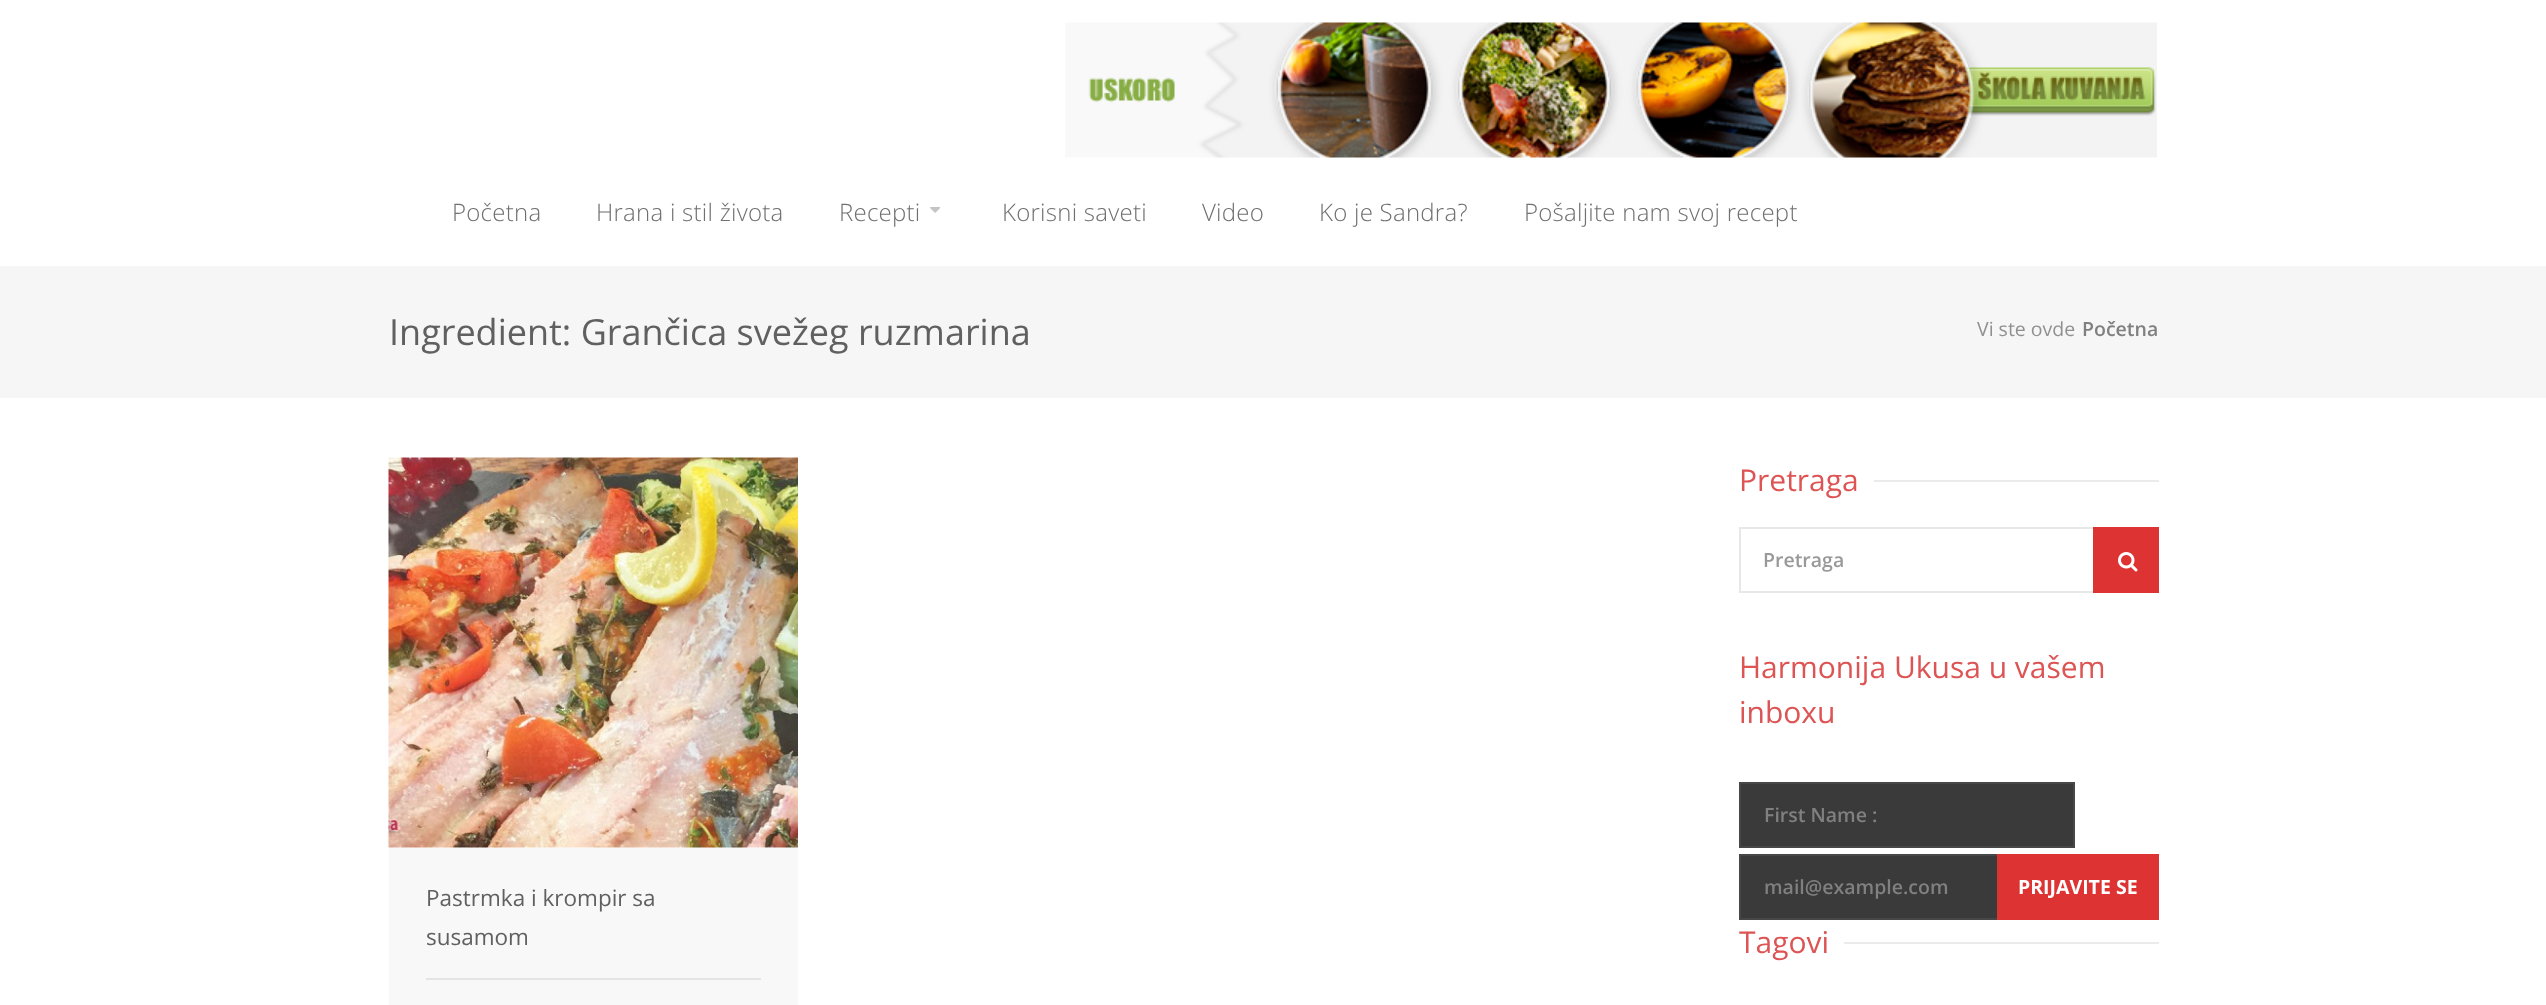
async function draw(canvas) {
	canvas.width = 2546;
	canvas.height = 1005;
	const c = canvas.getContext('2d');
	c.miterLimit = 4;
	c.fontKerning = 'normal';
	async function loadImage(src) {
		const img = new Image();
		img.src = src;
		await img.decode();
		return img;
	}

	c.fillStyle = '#fff';
	c.fillRect(0, 0, 2546, 1005);
	c.drawImage(await loadImage('img1.png'), 1065, 22, 1092, 136);
	c.letterSpacing = '0.25px';
	c.font = '300 24px Open Sans';
	c.fillStyle = '#707070';
	for (const [text, x, y] of [
		['Početna', 452, 221],
		['Hrana i stil života', 596, 221],
		['Recepti', 839, 221],
	]) {
		c.fillText(text, x, y);
	}
	c.drawImage(await loadImage('img2.png'), 930, 207, 11, 6);
	for (const [text, x, y] of [
		['Korisni saveti', 1002, 221],
		['Video', 1202, 221],
		['Ko je Sandra?', 1319, 221],
		['Pošaljite nam svoj recept', 1524, 221],
	]) {
		c.fillText(text, x, y);
	}
	c.fillStyle = '#f6f6f6';
	c.fillRect(0, 266, 2546, 132);
	c.letterSpacing = '0px';
	c.font = '36px Open Sans';
	c.fillStyle = '#606060';
	c.fillText('Ingredient: Grančica svežeg ruzmarina', 389, 345);
	c.font = '19.5px Open Sans';
	c.fillStyle = '#909090';
	c.fillText('Vi ste ovde', 1977, 336);
	c.font = '600 19.5px Open Sans';
	c.fillStyle = '#808080';
	c.fillText('Početna', 2082, 336);
	c.drawImage(await loadImage('img3.png'), 388, 457, 410, 391);
	c.fillStyle = '#f8f8f8';
	c.fillRect(389, 848, 409, 157);
	c.fillStyle = '#e5e5e5';
	c.fillRect(426, 978, 335, 2);
	c.font = '22.5px Open Sans';
	c.fillStyle = '#606060';
	c.fillText('Pastrmka i krompir sa', 426, 906);
	c.fillText('susamom', 426, 945);
	c.font = '30px Open Sans';
	c.fillStyle = '#dd5454';
	c.fillText('Pretraga', 1739, 491);
	c.fillStyle = '#ebebeb';
	c.fillRect(1874, 480, 285, 2);
	c.strokeStyle = '#e8e8e8';
	c.lineWidth = 2;
	c.strokeRect(1740, 528, 418, 64);
	c.font = '600 19.5px Open Sans';
	c.fillStyle = '#999';
	c.fillText('Pretraga', 1763, 567);
	c.fillStyle = '#d33';
	c.fillRect(2093, 527, 66, 66);
	c.drawImage(await loadImage('img4.png'), 2118, 552, 20, 20);
	c.font = '30px Open Sans';
	c.fillStyle = '#dd5454';
	c.fillText('Harmonija Ukusa u vašem', 1739, 678);
	c.fillText('inboxu', 1739, 723);
	c.fillStyle = '#3a3a3a';
	c.beginPath();
	c.rect(1740, 783, 334, 64);
	c.fill();
	c.strokeStyle = '#474747';
	c.stroke();
	c.font = '600 19.5px Open Sans';
	c.fillStyle = '#808080';
	c.fillText('First Name :', 1764, 822);
	c.fillStyle = '#3a3a3a';
	c.fillRect(1741, 856, 256, 62);
	c.strokeRect(1740, 855, 406, 64);
	c.fillStyle = '#808080';
	c.fillText('mail@example.com', 1764, 894);
	c.fillStyle = '#d33';
	c.fillRect(1997, 854, 162, 66);
	c.font = 'bold 19.5px Open Sans';
	c.fillStyle = '#fff';
	c.fillText('PRIJAVITE SE', 2018, 894);
	c.font = '30px Open Sans';
	c.fillStyle = '#dd5454';
	c.fillText('Tagovi', 1739, 953);
	c.fillStyle = '#ebebeb';
	c.fillRect(1844, 942, 315, 2);
}

draw(document.querySelector('canvas'));
